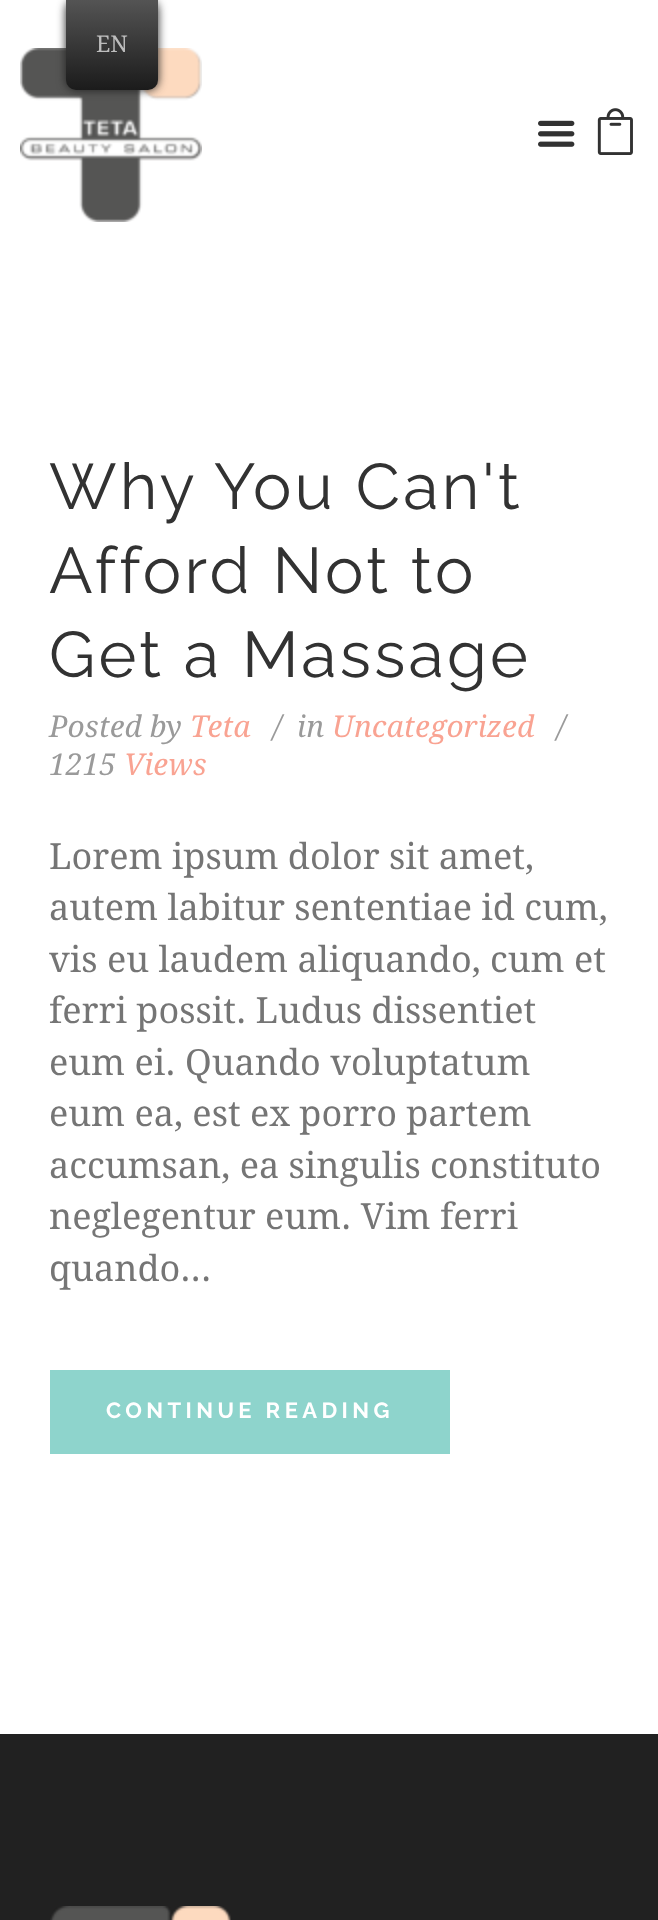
async function draw(canvas) {
	canvas.width = 658;
	canvas.height = 1920;
	const c = canvas.getContext('2d');
	c.miterLimit = 4;
	c.fontKerning = 'normal';
	async function loadImage(src) {
		const img = new Image();
		img.src = src;
		await img.decode();
		return img;
	}
	let gradient;

	c.fillStyle = '#fff';
	c.fillRect(0, 0, 658, 1920);
	c.drawImage(await loadImage('img1.png'), 20, 48, 182, 174);
	c.fillStyle = '#212121';
	c.filter = 'blur(5px)';
	c.beginPath();
	c.roundRect(66, 0, 92, 90, 10);
	c.fill();
	c.filter = 'none';
	gradient = c.createLinearGradient(112, 90, 112, 0);
	gradient.addColorStop(0, '#1b1b1b');
	gradient.addColorStop(1, '#545454');
	c.fillStyle = gradient;
	c.beginPath();
	c.roundRect(66, 0, 92, 90, [0, 0, 10, 10]);
	c.fill();
	c.font = '23px Droid Serif';
	c.fillStyle = '#bdbdbd';
	c.fillText('EN', 96, 52);
	c.drawImage(await loadImage('img2.png'), 538, 120, 37, 27);
	c.drawImage(await loadImage('img3.png'), 597, 108, 36, 47);
	c.letterSpacing = '3.25px';
	c.font = '64.5px Raleway';
	c.fillStyle = '#323232';
	for (const [text, x, y] of [
		['Why You Can\'t', 49, 509],
		['Afford Not to', 49, 593],
		['Get a Massage', 49, 677],
	]) {
		c.fillText(text, x, y);
	}
	c.letterSpacing = '0px';
	c.font = 'italic 30px Droid Serif';
	c.fillStyle = '#9a9a9a';
	for (const [text, x, y] of [
		['Posted by', 49, 737],
		['/', 557, 737],
		['1215', 49, 775],
	]) {
		c.fillText(text, x, y);
	}
	c.fillStyle = '#f9a392';
	c.fillText('Views', 124, 775);
	c.fillText('Teta', 190, 737);
	c.fillStyle = '#9a9a9a';
	c.fillText('/', 273, 737);
	c.fillText('in', 297, 737);
	c.fillStyle = '#f9a392';
	c.fillText('Uncategorized', 332, 737);
	c.font = '36px Droid Serif';
	c.fillStyle = '#757575';
	for (const [text, x, y] of [
		['Lorem ipsum dolor sit amet,', 49, 869],
		['autem labitur sententiae id cum,', 49, 920],
		['vis eu laudem aliquando, cum et', 49, 972],
		['ferri possit. Ludus dissentiet', 49, 1023],
		['eum ei. Quando voluptatum', 49, 1075],
		['eum ea, est ex porro partem', 49, 1126],
		['accumsan, ea singulis constituto', 49, 1178],
		['neglegentur eum. Vim ferri', 49, 1229],
		['quando...', 49, 1281],
	]) {
		c.fillText(text, x, y);
	}
	c.fillStyle = '#8ed4cc';
	c.fillRect(50, 1370, 400, 84);
	c.letterSpacing = '4.4px';
	c.font = 'bold 22px Raleway';
	c.fillStyle = '#fff';
	c.fillText('CONTINUE READING', 106, 1418);
	c.fillStyle = '#212121';
	c.fillRect(0, 1734, 658, 186);
	c.drawImage(await loadImage('img4.png'), 50, 1906, 181, 14);
}

draw(document.querySelector('canvas'));
